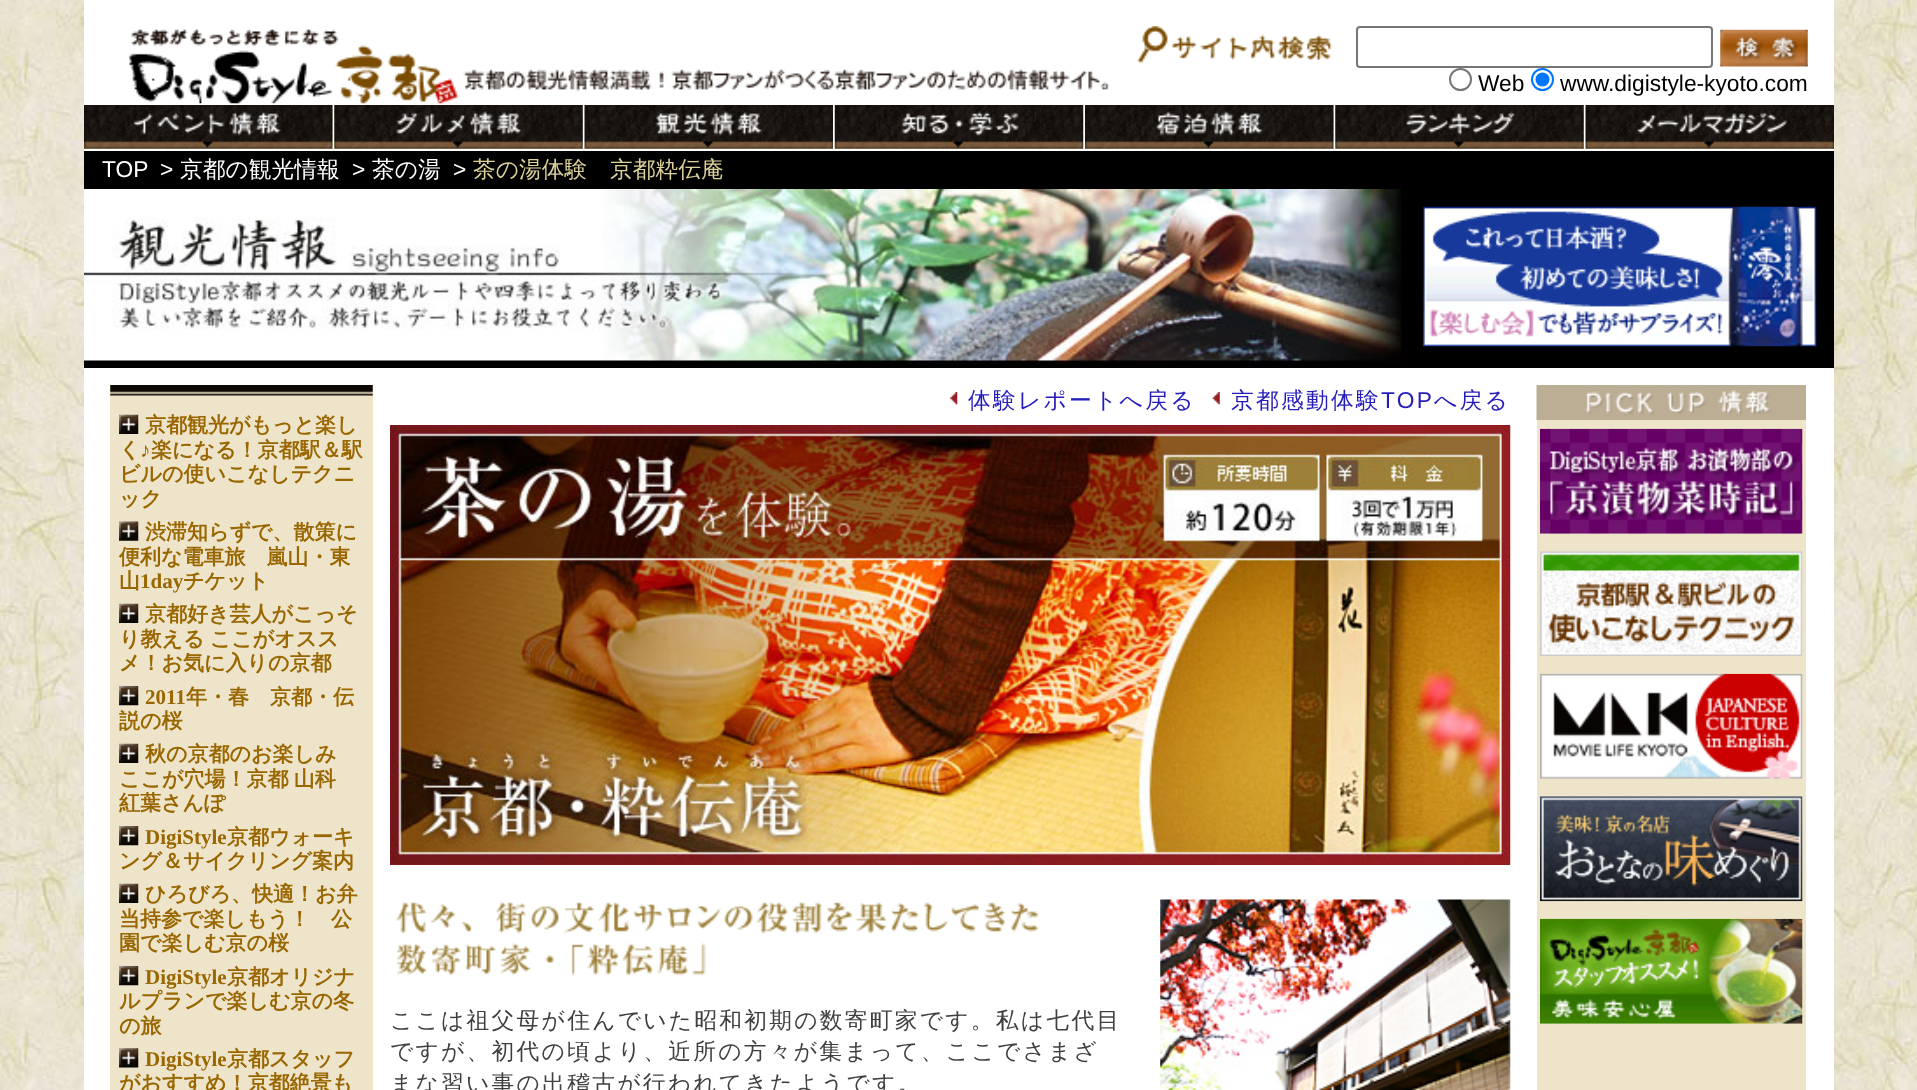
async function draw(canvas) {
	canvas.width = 1917;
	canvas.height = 1090;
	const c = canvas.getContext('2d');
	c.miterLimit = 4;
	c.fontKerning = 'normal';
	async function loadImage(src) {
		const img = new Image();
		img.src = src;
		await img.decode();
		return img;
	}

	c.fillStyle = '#fff';
	c.fillRect(0, 0, 1917, 1090);
	c.drawImage(await loadImage('img1.png'), 0, 0, 1917, 1090);
	c.drawImage(await loadImage('img2.png'), 84, 0, 1750, 105);
	c.drawImage(await loadImage('img3.png'), 128, 29, 331, 75);
	c.drawImage(await loadImage('img4.png'), 1137, 26, 195, 37);
	c.beginPath();
	c.roundRect(1357, 27, 355, 40, 3);
	c.strokeStyle = '#767676';
	c.lineWidth = 2;
	c.stroke();
	c.drawImage(await loadImage('img5.png'), 1720, 29, 88, 38);
	c.beginPath();
	c.arc(1460.5, 79.5, 10.5, 0, 2 * Math.PI);
	c.stroke();
	c.font = '22.75px Liberation Sans';
	c.fillStyle = '#000';
	c.fillText('Web', 1478, 91);
	c.beginPath();
	c.arc(1542.5, 79.5, 10.5, 0, 2 * Math.PI);
	c.strokeStyle = '#0075ff';
	c.stroke();
	c.fillStyle = '#0075ff';
	c.beginPath();
	c.arc(1542.5, 79.5, 7, 0, 2 * Math.PI);
	c.fill();
	c.fillStyle = '#000';
	c.fillText('www.digistyle-kyoto.com', 1560, 91);
	c.fillStyle = '#fff';
	c.fillRect(333, 105, 2, 44);
	c.drawImage(await loadImage('img6.png'), 84, 105, 249, 44);
	c.fillRect(583, 105, 2, 44);
	c.drawImage(await loadImage('img7.png'), 334, 105, 249, 44);
	c.fillRect(833, 105, 2, 44);
	c.drawImage(await loadImage('img8.png'), 584, 105, 249, 44);
	c.fillRect(1083, 105, 2, 44);
	c.drawImage(await loadImage('img9.png'), 834, 105, 250, 44);
	c.fillRect(1334, 105, 2, 44);
	c.drawImage(await loadImage('img10.png'), 1085, 105, 249, 44);
	c.fillRect(1584, 105, 2, 44);
	c.drawImage(await loadImage('img11.png'), 1335, 105, 249, 44);
	c.drawImage(await loadImage('img12.png'), 1585, 105, 249, 44);
	c.fillStyle = '#000';
	c.fillRect(84, 151, 1750, 217);
	c.fillStyle = '#fff';
	c.fillRect(84, 149, 1750, 2);
	c.fillText('TOP', 102, 177);
	c.fillText('>', 160, 177);
	c.font = '500 22.75px WenQuanYi Zen Hei';
	c.fillText('京都の観光情報', 180, 177);
	c.font = '22.75px Liberation Sans';
	c.fillText('>', 352, 177);
	c.font = '500 22.75px WenQuanYi Zen Hei';
	c.fillText('茶の湯', 372, 177);
	c.font = '22.75px Liberation Sans';
	c.fillText('>', 453, 177);
	c.font = '500 22.75px WenQuanYi Zen Hei';
	c.fillStyle = '#dbd199';
	c.fillText('茶の湯体験　京都粋伝庵', 473, 177);
	c.drawImage(await loadImage('img13.png'), 84, 189, 1318, 175);
	c.drawImage(await loadImage('img14.png'), 1422, 206, 395, 141);
	c.fillStyle = '#fff';
	c.fillRect(84, 368, 1750, 722);
	c.fillStyle = '#ede4ca';
	c.fillRect(110, 385, 263, 705);
	c.drawImage(await loadImage('img15.png'), 110, 385, 263, 11);
	c.drawImage(await loadImage('img16.png'), 119, 414, 20, 20);
	c.font = 'bold 21px WenQuanYi Zen Hei';
	c.fillStyle = '#960';
	c.fillText('京都観光がもっと楽し', 145, 432);
	c.fillText('く', 119, 457);
	c.font = 'bold 21px Liberation Serif';
	c.fillText('♪', 140, 457);
	c.font = 'bold 21px WenQuanYi Zen Hei';
	for (const [text, x, y] of [
		['楽になる！京都駅＆駅', 151, 457],
		['ビルの使いこなしテクニ', 119, 481],
		['ック', 119, 506],
	]) {
		c.fillText(text, x, y);
	}
	c.drawImage(await loadImage('img17.png'), 119, 521, 20, 20);
	for (const [text, x, y] of [
		['渋滞知らずで、散策に', 145, 539],
		['便利な電車旅　嵐山・東', 119, 564],
		['山', 119, 588],
	]) {
		c.fillText(text, x, y);
	}
	c.font = 'bold 21px Liberation Serif';
	c.fillText('1day', 140, 588);
	c.font = 'bold 21px WenQuanYi Zen Hei';
	c.fillText('チケット', 183, 588);
	c.drawImage(await loadImage('img16.png'), 119, 603, 20, 20);
	c.fillText('京都好き芸人がこっそ', 145, 621);
	c.wordSpacing = '-1px';
	c.fillText('り教える ここがオスス', 119, 646);
	c.wordSpacing = '0px';
	c.fillText('メ！お気に入りの京都', 119, 670);
	c.drawImage(await loadImage('img18.png'), 119, 686, 20, 20);
	c.font = 'bold 21px Liberation Serif';
	c.fillText('2011', 145, 704);
	c.font = 'bold 21px WenQuanYi Zen Hei';
	c.fillText('年・春　京都・伝', 186, 704);
	c.fillText('説の桜', 119, 728);
	c.drawImage(await loadImage('img16.png'), 119, 743, 20, 20);
	c.fillText('秋の京都のお楽しみ', 145, 761);
	c.wordSpacing = '-1px';
	c.fillText('ここが穴場！京都 山科', 119, 786);
	c.wordSpacing = '0px';
	c.fillText('紅葉さんぽ', 119, 810);
	c.drawImage(await loadImage('img18.png'), 119, 826, 20, 20);
	c.font = 'bold 21px Liberation Serif';
	c.fillText('DigiStyle', 145, 844);
	c.font = 'bold 21px WenQuanYi Zen Hei';
	c.fillText('京都ウォーキ', 227, 844);
	c.fillText('ング＆サイクリング案内', 119, 868);
	c.drawImage(await loadImage('img16.png'), 119, 883, 20, 20);
	for (const [text, x, y] of [
		['ひろびろ、快適！お弁', 145, 901],
		['当持参で楽しもう！　公', 119, 926],
		['園で楽しむ京の桜', 119, 950],
	]) {
		c.fillText(text, x, y);
	}
	c.drawImage(await loadImage('img18.png'), 119, 966, 20, 20);
	c.font = 'bold 21px Liberation Serif';
	c.fillText('DigiStyle', 145, 984);
	c.font = 'bold 21px WenQuanYi Zen Hei';
	for (const [text, x, y] of [
		['京都オリジナ', 227, 984],
		['ルプランで楽しむ京の冬', 119, 1008],
		['の旅', 119, 1033],
	]) {
		c.fillText(text, x, y);
	}
	c.drawImage(await loadImage('img19.png'), 119, 1048, 20, 20);
	c.font = 'bold 21px Liberation Serif';
	c.fillText('DigiStyle', 145, 1066);
	c.font = 'bold 21px WenQuanYi Zen Hei';
	c.fillText('京都スタッフ', 227, 1066);
	c.fillText('がおすすめ！京都絶景も', 119, 1090);
	c.drawImage(await loadImage('img20.png'), 950, 392, 8, 13);
	c.letterSpacing = '2.25px';
	c.font = '500 22.75px WenQuanYi Zen Hei';
	c.fillStyle = '#251dba';
	c.fillText('体験レポートへ戻る', 968, 408);
	c.drawImage(await loadImage('img21.png'), 1212, 392, 8, 13);
	c.fillText('京都感動体験', 1231, 408);
	c.font = '22.75px Liberation Sans';
	c.fillText('TOP', 1381, 408);
	c.font = '500 22.75px WenQuanYi Zen Hei';
	c.fillText('へ戻る', 1434, 408);
	c.fillStyle = '#8c1c20';
	c.fillRect(390, 425, 1120, 440);
	c.drawImage(await loadImage('img22.png'), 390, 425, 1121, 440);
	c.drawImage(await loadImage('img23.png'), 395, 901, 644, 75);
	c.fillStyle = '#3f3f3f';
	for (const [text, x, y] of [
		['ここは祖父母が住んでいた昭和初期の数寄町家です。私は七代目', 390, 1028],
		['ですが、初代の頃より、近所の方々が集まって、ここでさまざ', 390, 1059],
		['まな習い事の出稽古が行われてきたようです。', 390, 1091],
	]) {
		c.fillText(text, x, y);
	}
	c.drawImage(await loadImage('img24.png'), 1160, 899, 351, 191);
	c.fillStyle = '#ede4ca';
	c.fillRect(1537, 420, 269, 670);
	c.drawImage(await loadImage('img25.png'), 1536, 385, 270, 35);
	c.drawImage(await loadImage('img26.png'), 1540, 428, 263, 106);
	c.drawImage(await loadImage('img27.png'), 1540, 551, 263, 105);
	c.drawImage(await loadImage('img28.png'), 1540, 673, 263, 106);
	c.drawImage(await loadImage('img29.png'), 1540, 796, 263, 106);
	c.drawImage(await loadImage('img30.png'), 1540, 918, 263, 106);
}

draw(document.querySelector('canvas'));
